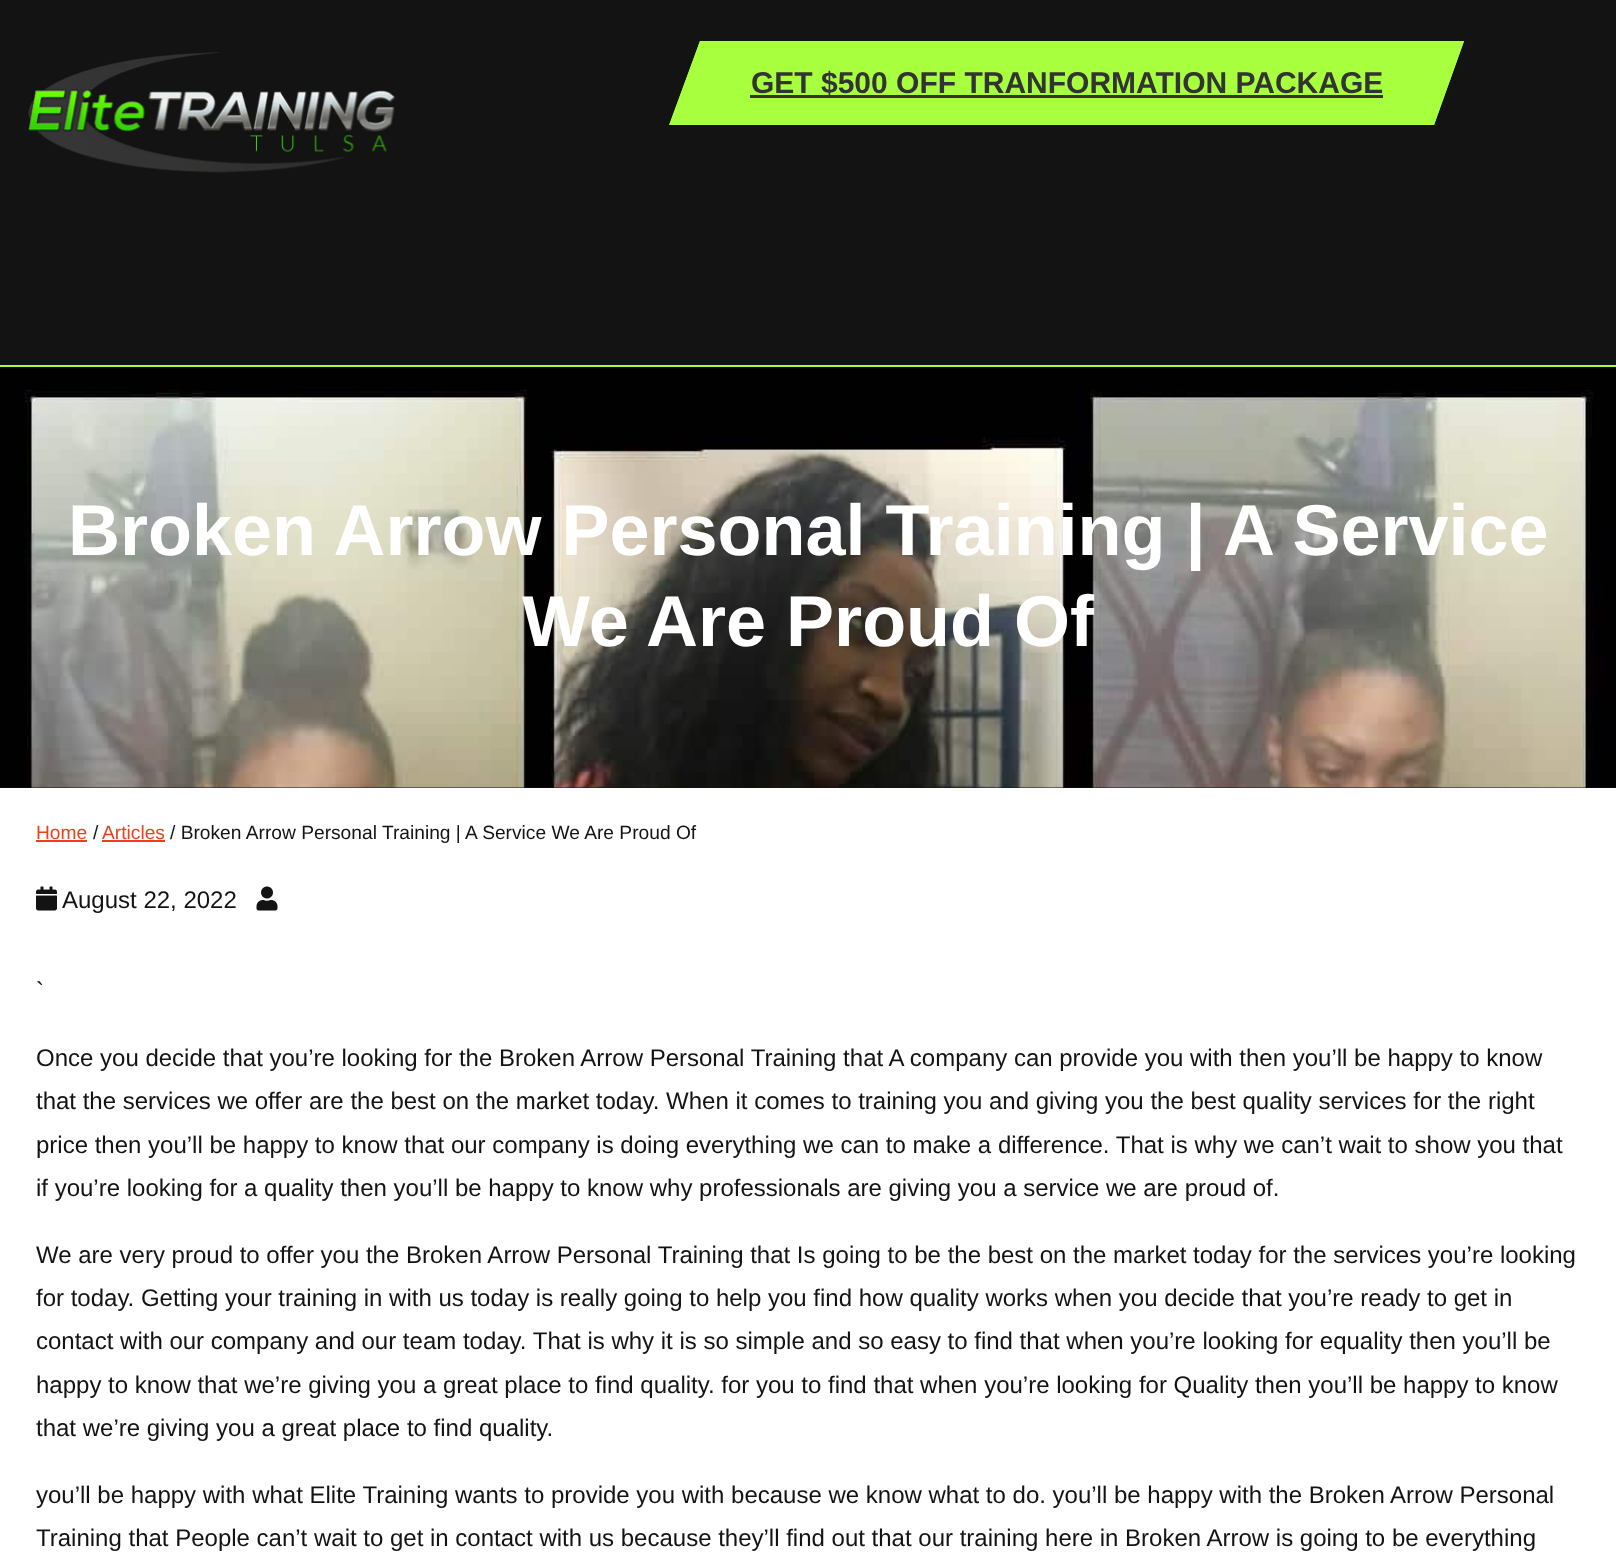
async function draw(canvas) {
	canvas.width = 1616;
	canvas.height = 1554;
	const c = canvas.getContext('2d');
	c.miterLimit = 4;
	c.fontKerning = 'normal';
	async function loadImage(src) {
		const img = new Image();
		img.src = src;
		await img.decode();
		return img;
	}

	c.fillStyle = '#fff';
	c.fillRect(0, 0, 1616, 1554);
	c.fillStyle = '#131313';
	c.fillRect(0, 0, 1616, 365);
	c.fillStyle = '#a7ff3d';
	c.fillRect(0, 365, 1616, 2);
	c.drawImage(await loadImage('img1.png'), 28, 52, 368, 121);
	c.beginPath();
	c.moveTo(700, 41);
	c.lineTo(1464, 41);
	c.lineTo(1434, 125);
	c.lineTo(669, 125);
	c.closePath();
	c.fill();
	c.beginPath();
	c.moveTo(701, 42.5);
	c.lineTo(1462, 42.5);
	c.lineTo(1433, 123.5);
	c.lineTo(671.5, 123.5);
	c.closePath();
	c.strokeStyle = '#a7ff3d';
	c.lineWidth = 3;
	c.stroke();
	c.fillStyle = '#333';
	c.fillRect(750, 95, 633, 3);
	c.font = 'bold 30px Arimo';
	c.fillText('GET $500 OFF TRANFORMATION PACKAGE', 751, 93);
	c.fillStyle = '#131313';
	c.fillRect(0, 787, 1616, 1);
	c.drawImage(await loadImage('img2.png'), 0, 367, 1616, 421);
	c.font = 'bold 72px Arimo';
	c.fillStyle = '#fff';
	c.fillText('Broken Arrow Personal Training | A Service', 68, 555);
	c.fillText('We Are Proud Of', 522, 646);
	c.font = '19.2px Arimo';
	c.fillStyle = '#eb3f1d';
	c.fillText('Home', 36, 839);
	c.fillRect(36, 840, 51, 2);
	c.fillStyle = '#131313';
	c.fillText('/', 93, 839);
	c.fillStyle = '#eb3f1d';
	c.fillText('Articles', 102, 839);
	c.fillRect(102, 840, 63, 2);
	c.fillStyle = '#131313';
	c.fillText('/ Broken Arrow Personal Training | A Service We Are Proud Of', 170, 839);
	c.drawImage(await loadImage('img3.png'), 36, 886, 21, 25);
	c.font = '24px Arimo';
	c.fillText('August 22, 2022', 62, 908);
	c.drawImage(await loadImage('img4.png'), 256, 886, 22, 25);
	for (const [text, x, y] of [
		['`', 36, 999],
		['Once you decide that you’re looking for the Broken Arrow Personal Training that A company can provide you with then you’ll be happy to know', 36, 1066],
		['that the services we offer are the best on the market today. When it comes to training you and giving you the best quality services for the right', 36, 1109],
		['price then you’ll be happy to know that our company is doing everything we can to make a difference. That is why we can’t wait to show you that', 36, 1153],
		['if you’re looking for a quality then you’ll be happy to know why professionals are giving you a service we are proud of.', 36, 1196],
		['We are very proud to offer you the Broken Arrow Personal Training that Is going to be the best on the market today for the services you’re looking', 36, 1263],
		['for today. Getting your training in with us today is really going to help you find how quality works when you decide that you’re ready to get in', 36, 1306],
		['contact with our company and our team today. That is why it is so simple and so easy to find that when you’re looking for equality then you’ll be', 36, 1349],
		['happy to know that we’re giving you a great place to find quality. for you to find that when you’re looking for Quality then you’ll be happy to know', 36, 1393],
		['that we’re giving you a great place to find quality.', 36, 1436],
		['you’ll be happy with what Elite Training wants to provide you with because we know what to do. you’ll be happy with the Broken Arrow Personal', 36, 1503],
		['Training that People can’t wait to get in contact with us because they’ll find out that our training here in Broken Arrow is going to be everything', 36, 1546],
	]) {
		c.fillText(text, x, y);
	}
}

draw(document.querySelector('canvas'));
